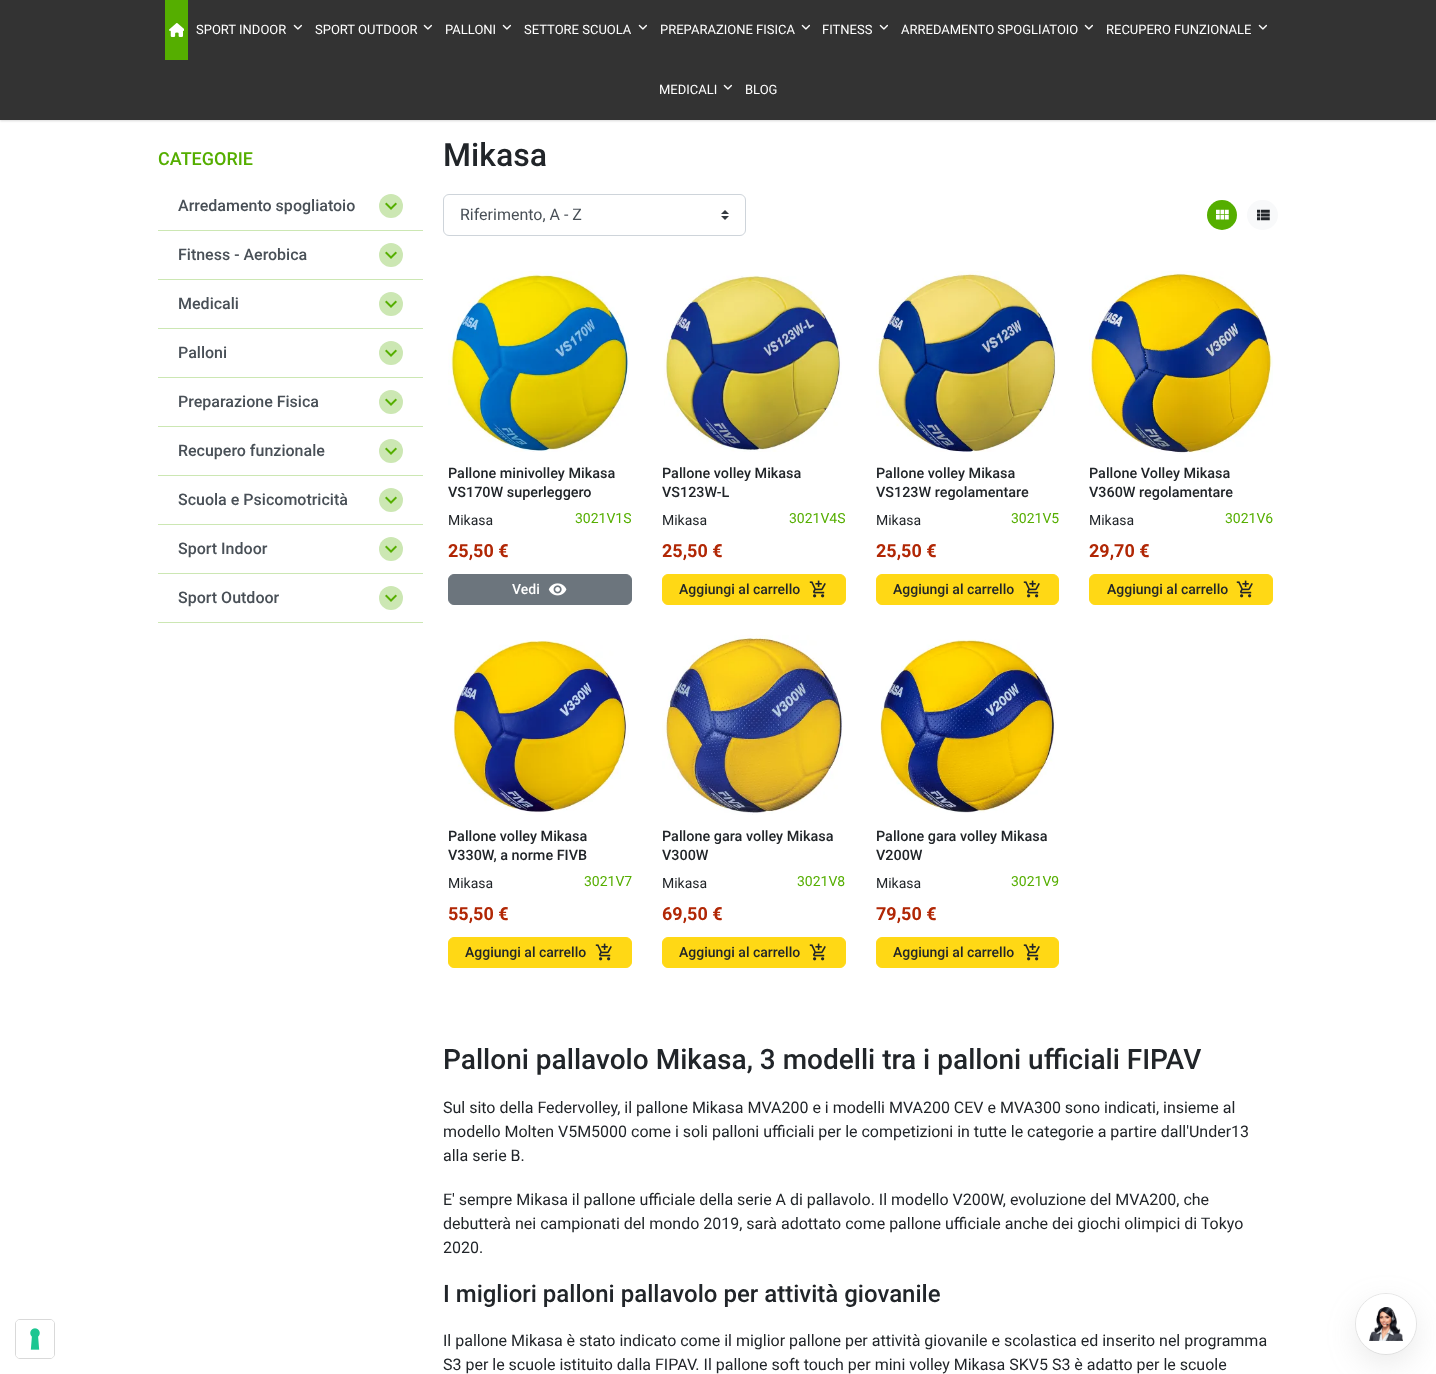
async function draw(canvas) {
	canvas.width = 1436;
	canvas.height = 1374;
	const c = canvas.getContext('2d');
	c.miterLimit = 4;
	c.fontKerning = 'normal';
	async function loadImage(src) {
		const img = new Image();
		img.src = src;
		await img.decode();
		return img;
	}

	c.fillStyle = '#fff';
	c.fillRect(0, 0, 1436, 1374);
	c.beginPath();
	c.roundRect(15.5, 1319.5, 39, 39, 4.5);
	c.strokeStyle = '#d9d9d9';
	c.stroke();
	c.beginPath();
	c.roundRect(16, 1320, 38, 38, 4);
	c.fill();
	c.drawImage(await loadImage('img1.png'), 30, 1328, 10, 22);
	c.fillStyle = '#00000026';
	c.filter = 'blur(1px)';
	c.beginPath();
	c.rect(0, 1, 1436, 120);
	c.fill();
	c.filter = 'none';
	c.fillStyle = '#333';
	c.fillRect(0, 0, 1436, 120);
	c.fillStyle = '#55ae00';
	c.fillRect(165, 0, 23, 60);
	c.drawImage(await loadImage('img2.png'), 169, 23, 15, 14);
	c.font = '13px Roboto';
	c.fillStyle = '#fff';
	c.fillText('SPORT INDOOR', 196, 34);
	c.drawImage(await loadImage('img3.png'), 293, 24, 9, 6);
	c.fillText('SPORT OUTDOOR', 315, 34);
	c.drawImage(await loadImage('img3.png'), 423, 24, 9, 6);
	c.fillText('PALLONI', 445, 34);
	c.drawImage(await loadImage('img3.png'), 502, 24, 9, 6);
	c.fillText('SETTORE SCUOLA', 524, 34);
	c.drawImage(await loadImage('img3.png'), 638, 24, 9, 6);
	c.fillText('PREPARAZIONE FISICA', 660, 34);
	c.drawImage(await loadImage('img3.png'), 801, 24, 9, 6);
	c.fillText('FITNESS', 822, 34);
	c.drawImage(await loadImage('img3.png'), 879, 24, 9, 6);
	c.fillText('ARREDAMENTO SPOGLIATOIO', 901, 34);
	c.drawImage(await loadImage('img3.png'), 1084, 24, 9, 6);
	c.fillText('RECUPERO FUNZIONALE', 1106, 34);
	c.drawImage(await loadImage('img3.png'), 1258, 24, 9, 6);
	c.fillText('MEDICALI', 659, 94);
	c.drawImage(await loadImage('img3.png'), 723, 84, 9, 6);
	c.fillText('BLOG', 745, 94);
	c.font = '500 18px Roboto';
	c.fillStyle = '#55ae00';
	c.fillText('CATEGORIE', 158, 165);
	c.fillStyle = '#cce7b3';
	c.fillRect(158, 230, 265, 1);
	c.font = '500 16px Roboto';
	c.fillStyle = '#495057';
	c.fillText('Arredamento spogliatoio', 178, 211);
	c.fillStyle = '#cce7b3';
	c.beginPath();
	c.arc(391, 206, 12, 0, 2 * Math.PI);
	c.fill();
	c.drawImage(await loadImage('img4.png'), 385, 202, 12, 8);
	c.fillRect(158, 279, 265, 1);
	c.fillStyle = '#495057';
	c.fillText('Fitness - Aerobica', 178, 260);
	c.fillStyle = '#cce7b3';
	c.beginPath();
	c.arc(391, 255, 12, 0, 2 * Math.PI);
	c.fill();
	c.drawImage(await loadImage('img4.png'), 385, 251, 12, 8);
	c.fillRect(158, 328, 265, 1);
	c.fillStyle = '#495057';
	c.fillText('Medicali', 178, 309);
	c.fillStyle = '#cce7b3';
	c.beginPath();
	c.arc(391, 304, 12, 0, 2 * Math.PI);
	c.fill();
	c.drawImage(await loadImage('img4.png'), 385, 300, 12, 8);
	c.fillRect(158, 377, 265, 1);
	c.fillStyle = '#495057';
	c.fillText('Palloni', 178, 358);
	c.fillStyle = '#cce7b3';
	c.beginPath();
	c.arc(391, 353, 12, 0, 2 * Math.PI);
	c.fill();
	c.drawImage(await loadImage('img4.png'), 385, 349, 12, 8);
	c.fillRect(158, 426, 265, 1);
	c.fillStyle = '#495057';
	c.fillText('Preparazione Fisica', 178, 407);
	c.fillStyle = '#cce7b3';
	c.beginPath();
	c.arc(391, 402, 12, 0, 2 * Math.PI);
	c.fill();
	c.drawImage(await loadImage('img4.png'), 385, 398, 12, 8);
	c.fillRect(158, 475, 265, 1);
	c.fillStyle = '#495057';
	c.fillText('Recupero funzionale', 178, 456);
	c.fillStyle = '#cce7b3';
	c.beginPath();
	c.arc(391, 451, 12, 0, 2 * Math.PI);
	c.fill();
	c.drawImage(await loadImage('img4.png'), 385, 447, 12, 8);
	c.fillRect(158, 524, 265, 1);
	c.fillStyle = '#495057';
	c.fillText('Scuola e Psicomotricità', 178, 505);
	c.fillStyle = '#cce7b3';
	c.beginPath();
	c.arc(391, 500, 12, 0, 2 * Math.PI);
	c.fill();
	c.drawImage(await loadImage('img4.png'), 385, 496, 12, 8);
	c.fillRect(158, 573, 265, 1);
	c.fillStyle = '#495057';
	c.fillText('Sport Indoor', 178, 554);
	c.fillStyle = '#cce7b3';
	c.beginPath();
	c.arc(391, 549, 12, 0, 2 * Math.PI);
	c.fill();
	c.drawImage(await loadImage('img4.png'), 385, 545, 12, 8);
	c.fillRect(158, 622, 265, 1);
	c.fillStyle = '#495057';
	c.fillText('Sport Outdoor', 178, 603);
	c.fillStyle = '#cce7b3';
	c.beginPath();
	c.arc(391, 598, 12, 0, 2 * Math.PI);
	c.fill();
	c.drawImage(await loadImage('img4.png'), 385, 594, 12, 8);
	c.font = '500 32px Roboto';
	c.fillStyle = '#212529';
	c.fillText('Mikasa', 443, 166);
	c.drawImage(await loadImage('img5.png'), 721, 210, 8, 10);
	c.beginPath();
	c.roundRect(443.5, 194.5, 302, 41, 5.5);
	c.strokeStyle = '#ced4da';
	c.stroke();
	c.font = '16px Roboto';
	c.fillStyle = '#495057';
	c.fillText('Riferimento, A - Z', 460, 220);
	c.fillStyle = '#55ae00';
	c.beginPath();
	c.arc(1222, 215, 15, 0, 2 * Math.PI);
	c.fill();
	c.drawImage(await loadImage('img6.png'), 1216, 209, 13, 11);
	c.fillStyle = '#f8f9fa';
	c.beginPath();
	c.roundRect(1247, 200, 31, 30, 15);
	c.fill();
	c.drawImage(await loadImage('img7.png'), 1257, 209, 13, 12);
	c.drawImage(await loadImage('img8.png'), 448, 271, 181, 181);
	c.font = '500 14.4px Roboto';
	c.fillStyle = '#212529';
	c.fillText('Pallone minivolley Mikasa', 448, 478);
	c.fillText('VS170W superleggero', 448, 497);
	c.font = '14px Roboto';
	c.fillText('Mikasa', 448, 525);
	c.fillStyle = '#55ae00';
	c.fillText('3021V1S', 575, 523);
	c.font = 'bold 18px Roboto';
	c.fillStyle = '#b12705';
	c.fillText('25,50 €', 448, 557);
	c.fillStyle = '#6c757d';
	c.beginPath();
	c.roundRect(448.5, 574.5, 183, 30, 5.5);
	c.fill();
	c.strokeStyle = '#6c757d';
	c.stroke();
	c.font = '500 14px Roboto';
	c.fillStyle = '#fff';
	c.fillText('Vedi', 512, 594);
	c.drawImage(await loadImage('img9.png'), 548, 583, 19, 13);
	c.drawImage(await loadImage('img10.png'), 664, 275, 178, 177);
	c.font = '500 14.4px Roboto';
	c.fillStyle = '#212529';
	c.fillText('Pallone volley Mikasa', 662, 478);
	c.fillText('VS123W-L', 662, 497);
	c.font = '14px Roboto';
	c.fillText('Mikasa', 662, 525);
	c.fillStyle = '#55ae00';
	c.fillText('3021V4S', 789, 523);
	c.font = 'bold 18px Roboto';
	c.fillStyle = '#b12705';
	c.fillText('25,50 €', 662, 557);
	c.fillStyle = '#ffd815';
	c.beginPath();
	c.roundRect(662.5, 574.5, 183, 30, 5.5);
	c.fill();
	c.strokeStyle = '#ffd815';
	c.stroke();
	c.font = '500 14px Roboto';
	c.fillStyle = '#212529';
	c.fillText('Aggiungi al carrello', 679, 594);
	c.drawImage(await loadImage('img11.png'), 809, 580, 17, 18);
	c.drawImage(await loadImage('img12.png'), 876, 271, 180, 181);
	c.font = '500 14.4px Roboto';
	c.fillText('Pallone volley Mikasa', 876, 478);
	c.fillText('VS123W regolamentare', 876, 497);
	c.font = '14px Roboto';
	c.fillText('Mikasa', 876, 525);
	c.fillStyle = '#55ae00';
	c.fillText('3021V5', 1011, 523);
	c.font = 'bold 18px Roboto';
	c.fillStyle = '#b12705';
	c.fillText('25,50 €', 876, 557);
	c.fillStyle = '#ffd815';
	c.beginPath();
	c.roundRect(876.5, 574.5, 182, 30, 5.5);
	c.fill();
	c.stroke();
	c.font = '500 14px Roboto';
	c.fillStyle = '#212529';
	c.fillText('Aggiungi al carrello', 893, 594);
	c.drawImage(await loadImage('img11.png'), 1023, 580, 17, 18);
	c.drawImage(await loadImage('img13.png'), 1089, 271, 184, 183);
	c.font = '500 14.4px Roboto';
	c.fillText('Pallone Volley Mikasa', 1089, 478);
	c.fillText('V360W regolamentare', 1089, 497);
	c.font = '14px Roboto';
	c.fillText('Mikasa', 1089, 525);
	c.fillStyle = '#55ae00';
	c.fillText('3021V6', 1225, 523);
	c.font = 'bold 18px Roboto';
	c.fillStyle = '#b12705';
	c.fillText('29,70 €', 1089, 557);
	c.fillStyle = '#ffd815';
	c.beginPath();
	c.roundRect(1089.5, 574.5, 183, 30, 5.5);
	c.fill();
	c.stroke();
	c.font = '500 14px Roboto';
	c.fillStyle = '#212529';
	c.fillText('Aggiungi al carrello', 1107, 594);
	c.drawImage(await loadImage('img11.png'), 1236, 580, 17, 18);
	c.drawImage(await loadImage('img14.png'), 453, 640, 176, 175);
	c.font = '500 14.4px Roboto';
	c.fillText('Pallone volley Mikasa', 448, 841);
	c.fillText('V330W, a norme FIVB', 448, 860);
	c.font = '14px Roboto';
	c.fillText('Mikasa', 448, 888);
	c.fillStyle = '#55ae00';
	c.fillText('3021V7', 584, 886);
	c.font = 'bold 18px Roboto';
	c.fillStyle = '#b12705';
	c.fillText('55,50 €', 448, 920);
	c.fillStyle = '#ffd815';
	c.beginPath();
	c.roundRect(448.5, 937.5, 183, 30, 5.5);
	c.fill();
	c.stroke();
	c.font = '500 14px Roboto';
	c.fillStyle = '#212529';
	c.fillText('Aggiungi al carrello', 465, 957);
	c.drawImage(await loadImage('img11.png'), 595, 943, 17, 18);
	c.drawImage(await loadImage('img15.png'), 662, 635, 181, 180);
	c.font = '500 14.4px Roboto';
	c.fillText('Pallone gara volley Mikasa', 662, 841);
	c.fillText('V300W', 662, 860);
	c.font = '14px Roboto';
	c.fillText('Mikasa', 662, 888);
	c.fillStyle = '#55ae00';
	c.fillText('3021V8', 797, 886);
	c.font = 'bold 18px Roboto';
	c.fillStyle = '#b12705';
	c.fillText('69,50 €', 662, 920);
	c.fillStyle = '#ffd815';
	c.beginPath();
	c.roundRect(662.5, 937.5, 183, 30, 5.5);
	c.fill();
	c.stroke();
	c.font = '500 14px Roboto';
	c.fillStyle = '#212529';
	c.fillText('Aggiungi al carrello', 679, 957);
	c.drawImage(await loadImage('img11.png'), 809, 943, 17, 18);
	c.drawImage(await loadImage('img16.png'), 880, 639, 176, 174);
	c.font = '500 14.4px Roboto';
	c.fillText('Pallone gara volley Mikasa', 876, 841);
	c.fillText('V200W', 876, 860);
	c.font = '14px Roboto';
	c.fillText('Mikasa', 876, 888);
	c.fillStyle = '#55ae00';
	c.fillText('3021V9', 1011, 886);
	c.font = 'bold 18px Roboto';
	c.fillStyle = '#b12705';
	c.fillText('79,50 €', 876, 920);
	c.fillStyle = '#ffd815';
	c.beginPath();
	c.roundRect(876.5, 937.5, 182, 30, 5.5);
	c.fill();
	c.stroke();
	c.font = '500 14px Roboto';
	c.fillStyle = '#212529';
	c.fillText('Aggiungi al carrello', 893, 957);
	c.drawImage(await loadImage('img11.png'), 1023, 943, 17, 18);
	c.font = '500 28px Roboto';
	c.fillText('Palloni pallavolo Mikasa, 3 modelli tra i palloni ufficiali FIPAV', 443, 1069);
	c.font = '16px Roboto';
	for (const [text, x, y] of [
		['Sul sito della Federvolley, il pallone Mikasa MVA200 e i modelli MVA200 CEV e MVA300 sono indicati, insieme al', 443, 1113],
		['modello Molten V5M5000 come i soli palloni ufficiali per le competizioni in tutte le categorie a partire dall\'Under13', 443, 1137],
		['alla serie B.', 443, 1161],
		['E\' sempre Mikasa il pallone ufficiale della serie A di pallavolo. Il modello V200W, evoluzione del MVA200, che', 443, 1205],
		['debutterà nei campionati del mondo 2019, sarà adottato come pallone ufficiale anche dei giochi olimpici di Tokyo', 443, 1229],
		['2020.', 443, 1253],
	]) {
		c.fillText(text, x, y);
	}
	c.font = '500 24px Roboto';
	c.fillText('I migliori palloni pallavolo per attività giovanile', 443, 1302);
	c.font = '16px Roboto';
	c.fillText('Il pallone Mikasa è stato indicato come il miglior pallone per attività giovanile e scolastica ed inserito nel programma', 443, 1346);
	c.fillText('S3 per le scuole istituito dalla FIPAV. Il pallone soft touch per mini volley Mikasa SKV5 S3 è adatto per le scuole', 443, 1370);
	c.beginPath();
	c.arc(1386, 1324, 30.5, 0, 2 * Math.PI);
	c.strokeStyle = '#eaeaea';
	c.stroke();
	c.fillStyle = '#96969633';
	c.filter = 'blur(15px)';
	c.beginPath();
	c.roundRect(1356, 1304, 60, 60, 30);
	c.fill();
	c.filter = 'none';
	c.fillStyle = '#fff';
	c.beginPath();
	c.arc(1386, 1324, 30, 0, 2 * Math.PI);
	c.fill();
	c.drawImage(await loadImage('img17.png'), 1369, 1307, 34, 34);
}

draw(document.querySelector('canvas'));
